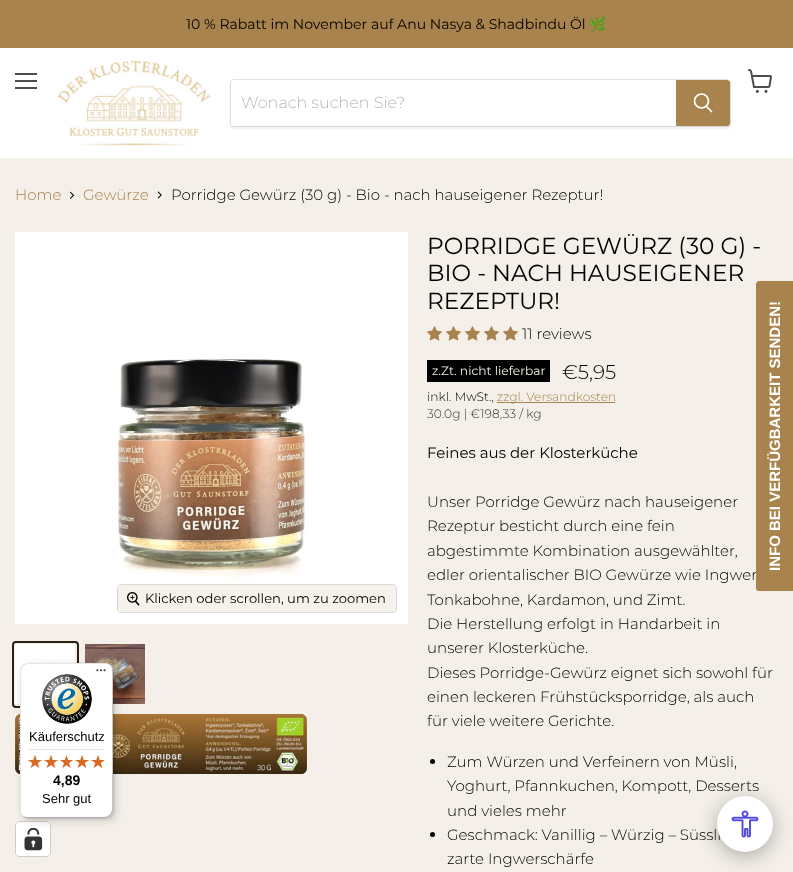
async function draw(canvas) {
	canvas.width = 793;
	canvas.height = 872;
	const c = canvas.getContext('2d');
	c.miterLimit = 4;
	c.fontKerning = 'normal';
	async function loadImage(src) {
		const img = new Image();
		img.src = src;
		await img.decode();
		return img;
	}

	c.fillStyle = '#f4f0e9';
	c.fillRect(0, 0, 793, 872);
	c.fillStyle = '#a8834d';
	c.fillRect(0, 0, 793, 48);
	c.font = '100 14.05px Montserrat';
	c.fillStyle = '#000';
	c.fillText('10 % Rabatt im November auf Anu Nasya & Shadbindu Öl', 186, 29);
	c.font = '14.05px Noto Color Emoji';
	c.fillText('🌿', 589, 29);
	for (const [x, y, w, h, color] of [
		[0, 48, 793, 110, '#fff'],
		[15, 73, 22, 2, '#4d4d4d'],
		[15, 80, 22, 2, '#4d4d4d'],
		[15, 87, 22, 2, '#4d4d4d'],
	]) {
		c.fillStyle = color;
		c.fillRect(x, y, w, h);
	}
	c.drawImage(await loadImage('img1.png'), 748, 69, 24, 24);
	c.drawImage(await loadImage('img2.png'), 57, 60, 154, 86);
	c.fillStyle = '#7a78751c';
	c.filter = 'blur(1.5px)';
	c.beginPath();
	c.roundRect(230, 81, 501, 48, 4);
	c.fill();
	c.filter = 'none';
	c.beginPath();
	c.roundRect(230.5, 79.5, 500, 47, 3.5);
	c.strokeStyle = '#7a787533';
	c.stroke();
	c.fillStyle = '#fff';
	c.beginPath();
	c.roundRect(231, 80, 445, 46, [3, 0, 0, 3]);
	c.fill();
	c.font = '300 16px Montserrat';
	c.fillStyle = '#b8b8b8';
	c.fillText('Wonach suchen Sie?', 241, 108);
	c.fillStyle = '#a8834d';
	c.beginPath();
	c.roundRect(676.5, 80.5, 53, 45, [0, 2.5, 2.5, 0]);
	c.fill();
	c.strokeStyle = '#a8834d';
	c.stroke();
	c.beginPath();
	c.moveTo(711.5, 111.5);
	c.lineTo(706.5, 106.5);
	c.strokeStyle = '#fff';
	c.lineWidth = 1.7;
	c.lineCap = 'round';
	c.stroke();
	c.beginPath();
	c.arc(701.5, 101, 7, 0, 2 * Math.PI);
	c.stroke();
	c.font = '300 15px Montserrat';
	c.fillText('Home', 15, 200);
	c.drawImage(await loadImage('img3.png'), 70, 191, 5, 8);
	c.fillText('Gewürze', 83, 200);
	c.drawImage(await loadImage('img4.png'), 157, 191, 5, 8);
	c.fillStyle = '#000';
	c.fillText('Porridge Gewürz (30 g) - Bio - nach hauseigener Rezeptur!', 171, 200);
	c.drawImage(await loadImage('img5.png'), 15, 232, 393, 392);
	c.beginPath();
	c.roundRect(117.5, 584.5, 279, 28, 3.5);
	c.strokeStyle = '#d9d9d9';
	c.lineWidth = 1;
	c.stroke();
	c.fillStyle = '#f4f0e9e6';
	c.beginPath();
	c.roundRect(118, 585, 278, 27, 3);
	c.fill();
	c.drawImage(await loadImage('img6.png'), 127, 592, 13, 14);
	c.font = '100 13.1px Montserrat';
	c.fillStyle = '#000';
	c.fillText('Klicken oder scrollen, um zu zoomen', 145, 603);
	c.beginPath();
	c.roundRect(13, 642, 65, 65, 3);
	c.strokeStyle = '#2a2113';
	c.lineWidth = 2;
	c.stroke();
	c.drawImage(await loadImage('img7.png'), 15, 644, 60, 60);
	c.drawImage(await loadImage('img8.png'), 85, 644, 60, 60);
	c.drawImage(await loadImage('img9.png'), 15, 714, 292, 60);
	c.font = '100 23.25px Montserrat';
	for (const [text, x, y] of [
		['PORRIDGE GEWÜRZ (30 G) -', 427, 254],
		['BIO - NACH HAUSEIGENER', 427, 281],
		['REZEPTUR!', 427, 309],
	]) {
		c.fillText(text, x, y);
	}
	c.drawImage(await loadImage('img10.png'), 427, 326, 15, 15);
	c.drawImage(await loadImage('img10.png'), 446, 326, 15, 15);
	c.drawImage(await loadImage('img10.png'), 465, 326, 15, 15);
	c.drawImage(await loadImage('img10.png'), 484, 326, 15, 15);
	c.drawImage(await loadImage('img10.png'), 503, 326, 15, 15);
	c.font = '300 15px Montserrat';
	c.fillText('11 reviews', 522, 339);
	c.font = '300 20px Montserrat';
	c.fillText('€5,95', 562, 379);
	c.font = '300 12.25px Montserrat';
	c.fillText('inkl. MwSt.,', 427, 401);
	c.fillStyle = '#a8834d';
	c.fillRect(497, 402, 118, 1);
	c.fillText('zzgl. Versandkosten', 497, 401);
	c.fillStyle = '#31302f';
	c.fillText('30.0g | €198,33 / kg', 427, 418);
	c.fillStyle = '#000';
	c.fillRect(427, 360, 123, 22);
	c.font = '100 12.25px Montserrat';
	c.fillStyle = '#f4f0e9';
	c.fillText('z.Zt. nicht lieferbar', 432, 375);
	c.font = '100 15px Montserrat';
	c.fillStyle = '#000';
	c.fillText('Feines aus der Klosterküche', 427, 458);
	c.font = '300 15px Montserrat';
	for (const [text, x, y] of [
		['Unser Porridge Gewürz nach hauseigener', 427, 507],
		['Rezeptur besticht durch eine fein', 427, 531],
		['abgestimmte Kombination ausgewählter,', 427, 556],
		['edler orientalischer BIO Gewürze wie Ingwer', 427, 580],
		['Tonkabohne, Kardamon, und Zimt.', 427, 605],
		['Die Herstellung erfolgt in Handarbeit in', 427, 629],
		['unserer Klosterküche.', 427, 653],
		['Dieses Porridge-Gewürz eignet sich sowohl für', 427, 678],
		['einen leckeren Frühstücksporridge, als auch', 427, 702],
		['für viele weitere Gerichte.', 427, 726],
	]) {
		c.fillText(text, x, y);
	}
	c.beginPath();
	c.arc(432.5, 761.5, 2.5, 0, 2 * Math.PI);
	c.fill();
	for (const [text, x, y] of [
		['Zum Würzen und Verfeinern von Müsli,', 447, 767],
		['Yoghurt, Pfannkuchen, Kompott, Desserts', 447, 791],
		['und vieles mehr', 447, 816],
	]) {
		c.fillText(text, x, y);
	}
	c.beginPath();
	c.arc(432.5, 834.5, 2.5, 0, 2 * Math.PI);
	c.fill();
	c.fillText('Geschmack: Vanillig – Würzig – Süssli', 447, 840);
	c.fillText('zarte Ingwerschärfe', 447, 864);
	c.fillStyle = '#a8834d';
	c.beginPath();
	c.moveTo(756, 588);
	c.lineTo(756, 284);
	c.bezierCurveTo(756, 283, 757, 281, 759, 281);
	c.lineTo(793, 281);
	c.lineTo(793, 591);
	c.lineTo(759, 591);
	c.bezierCurveTo(757, 591, 756, 590, 756, 588);
	c.closePath();
	c.fill();
	c.font = 'bold 15px Liberation Sans';
	c.fillStyle = '#fff';
	c.save();
	c.translate(780, 571);
	c.rotate(-90 * Math.PI / 180);
	c.fillText('INFO BEI VERFÜGBARKEIT SENDEN!', 0, 0);
	c.restore();
	c.beginPath();
	c.roundRect(15.5, 821.5, 35, 35, 4.5);
	c.strokeStyle = '#cfccc6';
	c.lineWidth = 1;
	c.stroke();
	c.beginPath();
	c.roundRect(16, 822, 34, 34, 4);
	c.fill();
	c.drawImage(await loadImage('img19.png'), 24, 828, 19, 23);
	c.fillStyle = '#00000026';
	c.filter = 'blur(4px)';
	c.beginPath();
	c.roundRect(23, 666, 93, 155, 8);
	c.fill();
	c.filter = 'none';
	c.filter = 'blur(1px)';
	c.beginPath();
	c.roundRect(21, 664, 93, 155, 8);
	c.fill();
	c.filter = 'none';
	c.fillStyle = '#fff';
	c.beginPath();
	c.roundRect(20, 663, 93, 155, 8);
	c.fill();
	c.fillStyle = '#0000001a';
	c.beginPath();
	c.moveTo(29, 664);
	c.lineTo(106, 664);
	c.bezierCurveTo(108, 664, 110, 665, 112, 667);
	c.bezierCurveTo(110, 665, 108, 663, 105, 663);
	c.lineTo(28, 663);
	c.bezierCurveTo(24, 663, 20, 667, 20, 671);
	c.lineTo(20, 810);
	c.bezierCurveTo(20, 813, 22, 815, 24, 817);
	c.bezierCurveTo(22, 815, 21, 813, 21, 811);
	c.lineTo(21, 672);
	c.bezierCurveTo(21, 668, 25, 664, 29, 664);
	c.closePath();
	c.fill();
	c.fillStyle = '#00000033';
	c.beginPath();
	c.moveTo(21, 814);
	c.bezierCurveTo(23, 816, 25, 818, 28, 818);
	c.lineTo(105, 818);
	c.bezierCurveTo(109, 818, 113, 814, 113, 810);
	c.lineTo(113, 671);
	c.bezierCurveTo(113, 668, 111, 666, 109, 664);
	c.bezierCurveTo(111, 666, 112, 668, 112, 670);
	c.lineTo(112, 809);
	c.bezierCurveTo(112, 813, 108, 817, 104, 817);
	c.lineTo(27, 817);
	c.bezierCurveTo(25, 817, 23, 816, 21, 814);
	c.closePath();
	c.fill();
	c.fillStyle = '#32323233';
	c.beginPath();
	c.moveTo(22, 815);
	c.bezierCurveTo(23, 817, 26, 818, 28, 818);
	c.lineTo(105, 818);
	c.bezierCurveTo(109, 818, 113, 814, 113, 810);
	c.lineTo(113, 671);
	c.bezierCurveTo(113, 669, 112, 666, 110, 665);
	c.bezierCurveTo(111, 666, 112, 668, 112, 670);
	c.lineTo(112, 809);
	c.bezierCurveTo(112, 814, 109, 817, 104, 817);
	c.lineTo(27, 817);
	c.bezierCurveTo(25, 817, 23, 816, 22, 815);
	c.closePath();
	c.fill();
	c.fillStyle = '#ffffff4d';
	c.beginPath();
	c.moveTo(104, 818);
	c.lineTo(105, 818);
	c.bezierCurveTo(109, 818, 113, 814, 113, 810);
	c.lineTo(113, 671);
	c.bezierCurveTo(113, 669, 112, 666, 110, 665);
	c.bezierCurveTo(111, 666, 112, 668, 112, 670);
	c.lineTo(112, 810);
	c.bezierCurveTo(112, 814, 109, 818, 104, 818);
	c.closePath();
	c.fill();
	c.drawImage(await loadImage('img11.png'), 96, 669, 10, 3);
	c.drawImage(await loadImage('img12.png'), 42, 674, 50, 50);
	c.font = '13px Liberation Sans';
	c.fillStyle = '#000';
	c.fillText('Käuferschutz', 29, 741);
	c.fillStyle = '#e5e5e5';
	c.fillRect(28, 749, 77, 1);
	c.drawImage(await loadImage('img13.png'), 28, 755, 14, 13);
	c.drawImage(await loadImage('img13.png'), 44, 755, 14, 13);
	c.drawImage(await loadImage('img14.png'), 60, 755, 13, 13);
	c.drawImage(await loadImage('img13.png'), 75, 755, 14, 13);
	c.drawImage(await loadImage('img13.png'), 91, 755, 14, 13);
	c.drawImage(await loadImage('img15.png'), 28, 755, 14, 13);
	c.drawImage(await loadImage('img15.png'), 44, 755, 14, 13);
	c.drawImage(await loadImage('img16.png'), 60, 755, 13, 13);
	c.drawImage(await loadImage('img15.png'), 75, 755, 14, 13);
	c.drawImage(await loadImage('img17.png'), 91, 755, 13, 13);
	c.font = 'bold 14px Liberation Sans';
	c.fillStyle = '#000';
	c.fillText('4,89', 53, 785);
	c.font = '13px Liberation Sans';
	c.fillText('Sehr gut', 42, 803);
	c.fillStyle = '#0000004d';
	c.filter = 'blur(10px)';
	c.beginPath();
	c.roundRect(717, 800, 56, 56, 28);
	c.fill();
	c.filter = 'none';
	c.fillStyle = '#fff';
	c.beginPath();
	c.arc(745, 824, 28, 0, 2 * Math.PI);
	c.fill();
	c.drawImage(await loadImage('img18.png'), 731, 810, 28, 28);
}

draw(document.querySelector('canvas'));
